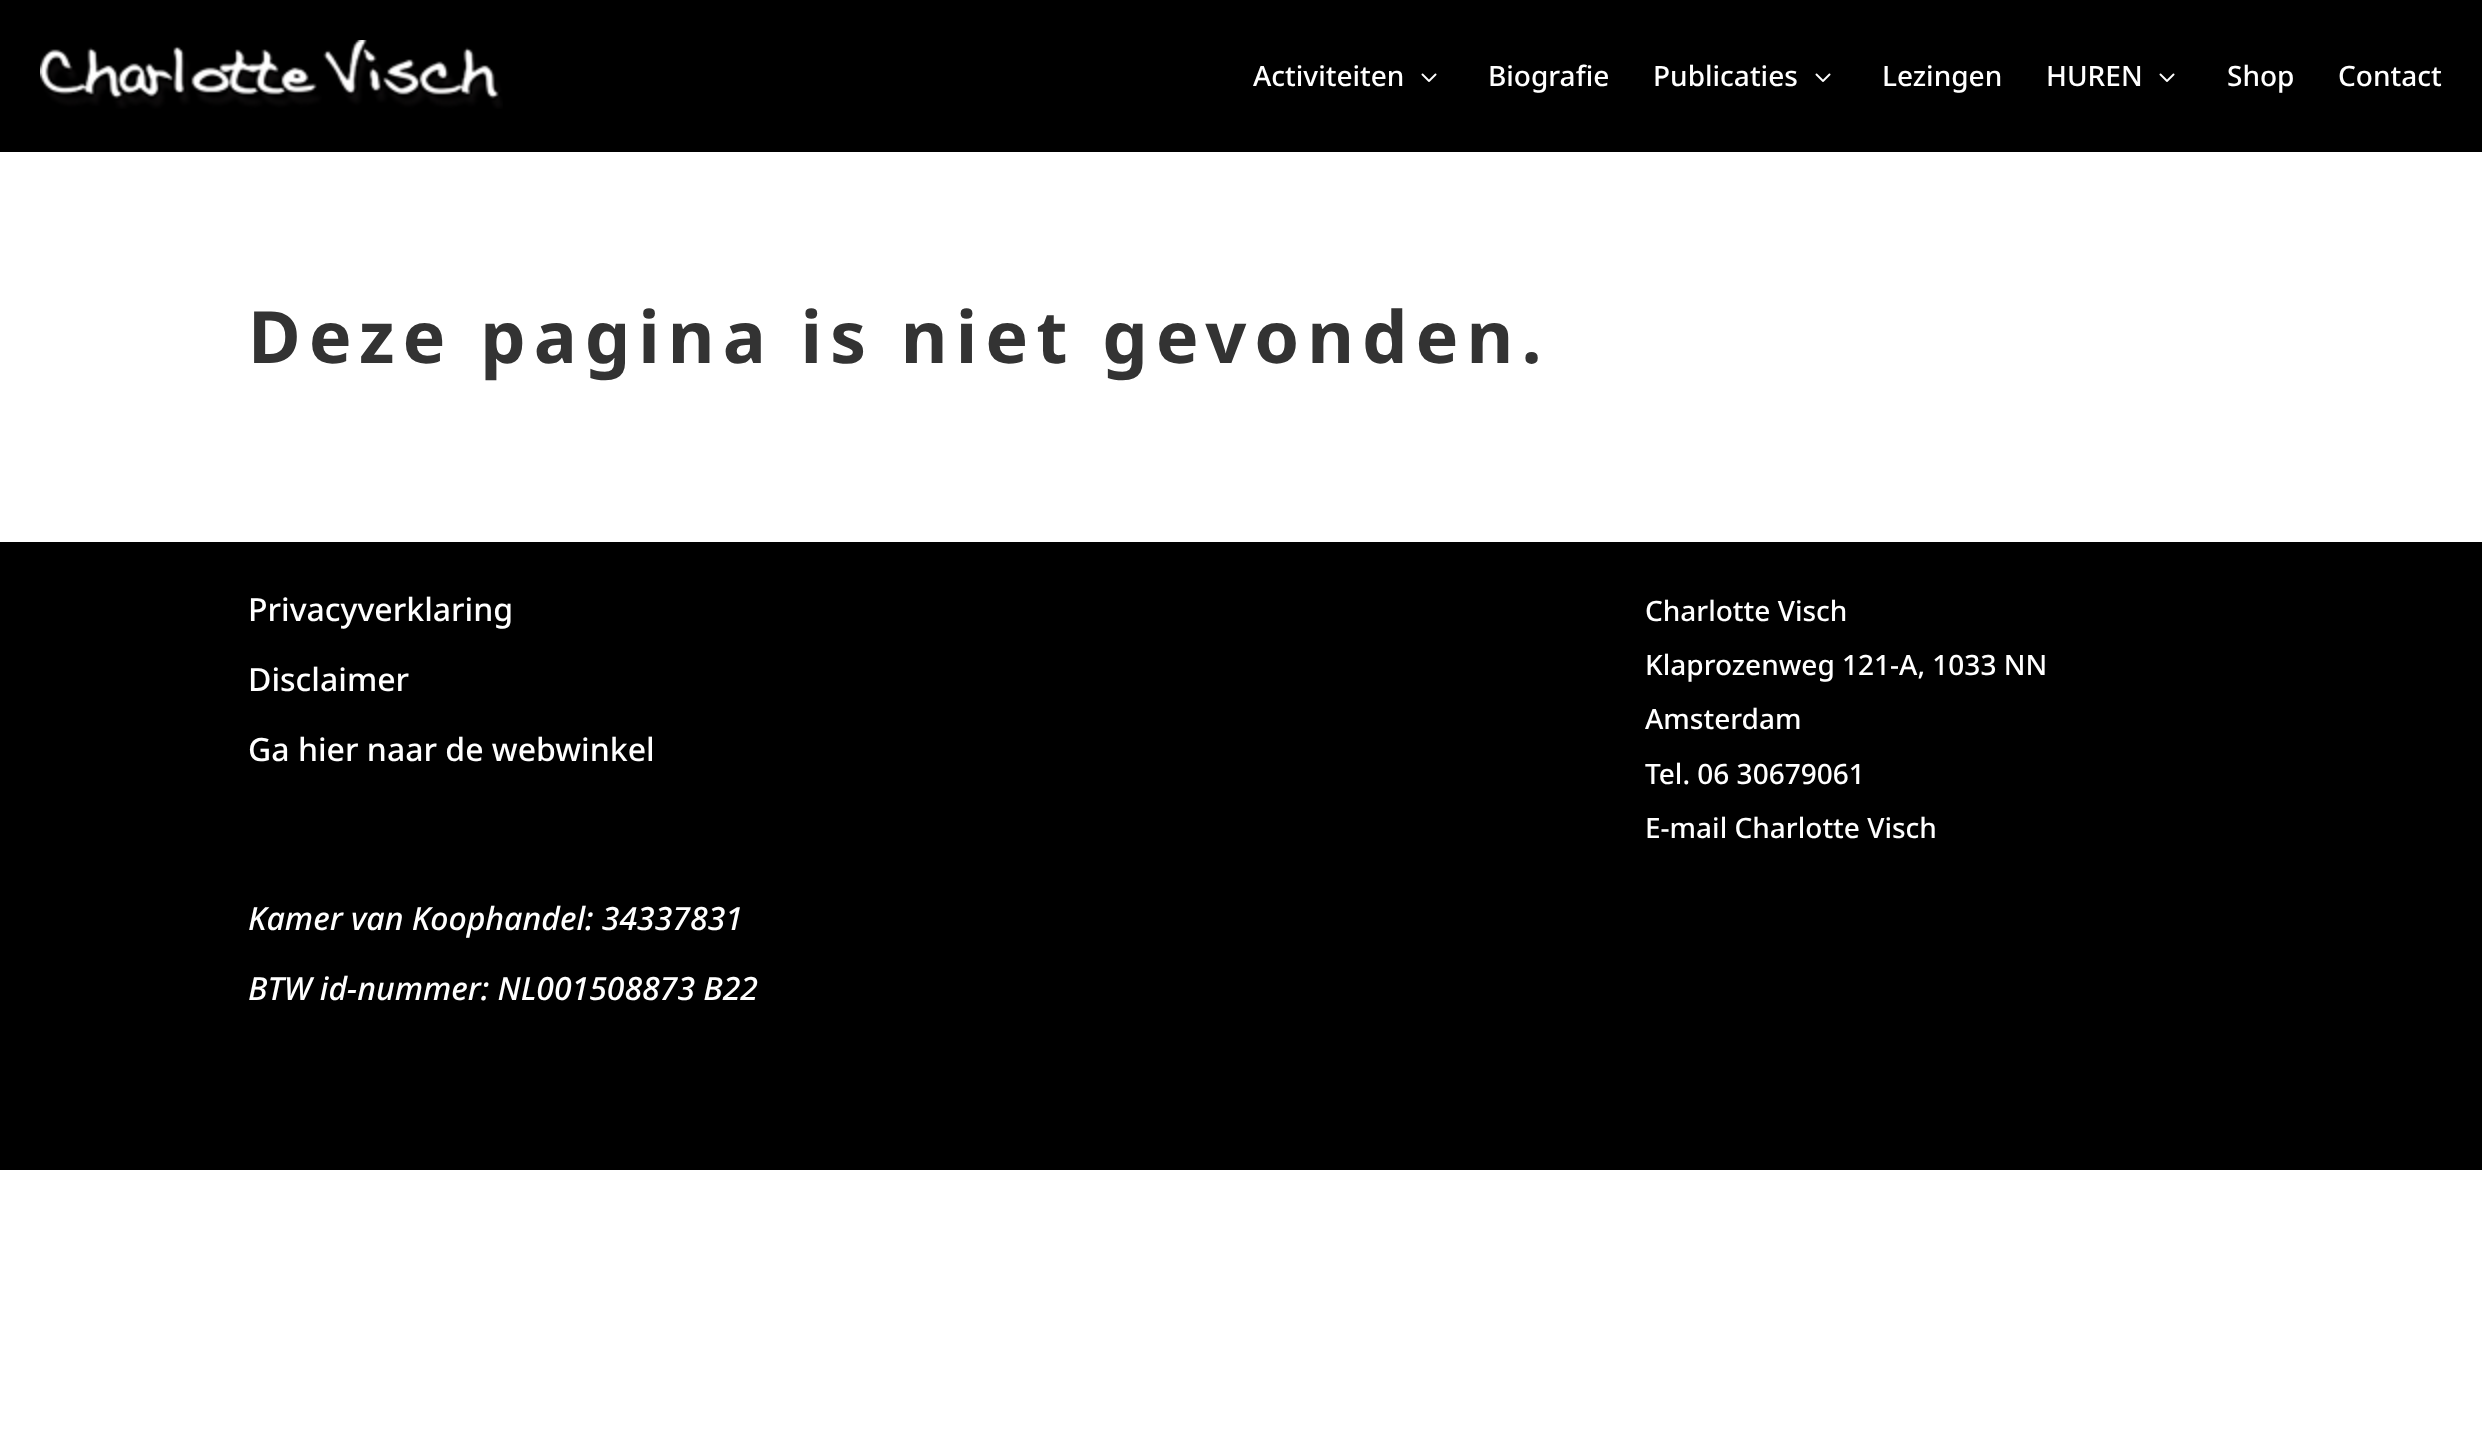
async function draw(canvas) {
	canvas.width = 2482;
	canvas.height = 1442;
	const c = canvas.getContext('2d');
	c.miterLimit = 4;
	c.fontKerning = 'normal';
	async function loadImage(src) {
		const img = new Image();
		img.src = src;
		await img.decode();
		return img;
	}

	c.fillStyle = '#fff';
	c.fillRect(0, 0, 2482, 1442);
	c.fillStyle = '#000';
	c.fillRect(0, 0, 2482, 152);
	c.drawImage(await loadImage('img1.png'), 40, 40, 463, 69);
	c.font = '500 28px Noto Sans';
	c.fillStyle = '#fff';
	c.fillText('Activiteiten', 1253, 86);
	c.drawImage(await loadImage('img2.png'), 1421, 73, 16, 9);
	c.fillText('Biografie', 1488, 86);
	c.fillText('Publicaties', 1653, 86);
	c.drawImage(await loadImage('img2.png'), 1815, 73, 16, 9);
	c.fillText('Lezingen', 1882, 86);
	c.fillText('HUREN', 2046, 86);
	c.drawImage(await loadImage('img2.png'), 2159, 73, 16, 9);
	c.fillText('Shop', 2227, 86);
	c.fillText('Contact', 2338, 86);
	c.letterSpacing = '8px';
	c.font = 'bold 72px Noto Sans';
	c.fillStyle = '#333';
	c.fillText('Deze pagina is niet gevonden.', 248, 363);
	c.fillStyle = '#000';
	c.fillRect(0, 542, 2482, 628);
	c.letterSpacing = '0px';
	c.font = '500 32px Noto Sans';
	c.fillStyle = '#fff';
	for (const [text, x, y] of [
		['Privacyverklaring', 248, 621],
		['Disclaimer', 248, 691],
		['Ga hier naar de webwinkel', 248, 761],
	]) {
		c.fillText(text, x, y);
	}
	c.font = 'italic 500 32px Noto Sans';
	c.fillText('Kamer van Koophandel: 34337831', 248, 930);
	c.fillText('BTW id-nummer: NL001508873 B22', 248, 1000);
	c.font = '500 28px Noto Sans';
	for (const [text, x, y] of [
		['Charlotte Visch', 1645, 621],
		['Klaprozenweg 121-A, 1033 NN', 1645, 675],
		['Amsterdam', 1645, 729],
		['Tel. 06 30679061', 1645, 784],
		['E-mail Charlotte Visch', 1645, 838],
	]) {
		c.fillText(text, x, y);
	}
}

draw(document.querySelector('canvas'));
